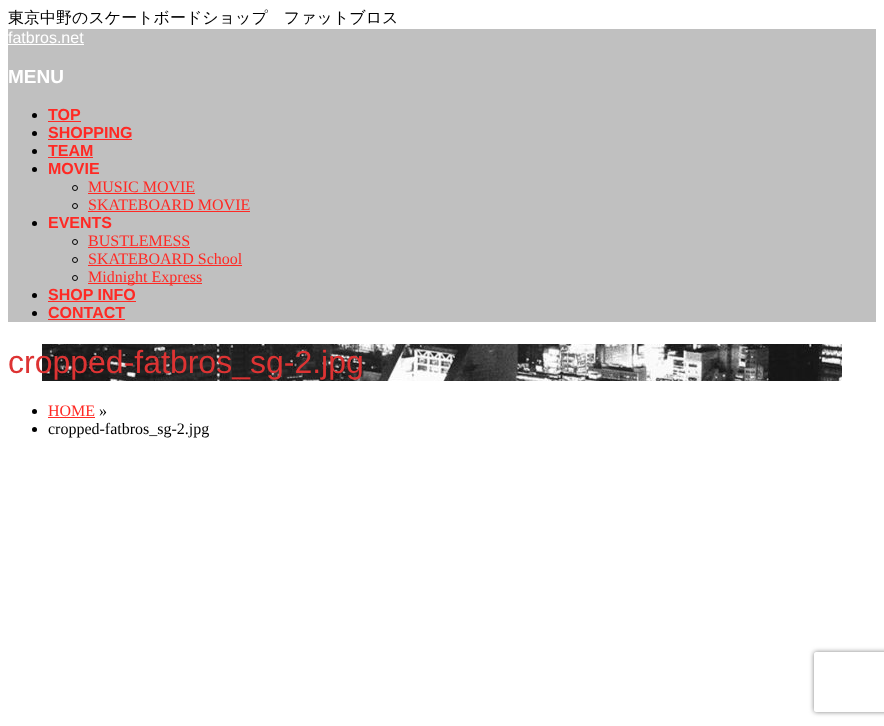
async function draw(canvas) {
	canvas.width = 884;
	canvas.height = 726;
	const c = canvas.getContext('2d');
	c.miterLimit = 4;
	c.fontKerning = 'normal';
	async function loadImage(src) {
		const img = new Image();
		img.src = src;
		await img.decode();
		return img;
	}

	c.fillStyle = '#fff';
	c.fillRect(0, 0, 884, 726);
	c.font = '500 16px WenQuanYi Zen Hei';
	c.fillStyle = '#000';
	c.fillText('東京中野のスケートボードショップ　ファットブロス', 8, 23);
	c.fillStyle = '#c0c0c0';
	c.fillRect(8, 29, 868, 293);
	c.font = '16px Liberation Sans';
	c.fillStyle = '#fff';
	c.fillText('fatbros.net', 8, 43);
	c.fillRect(8, 44, 76, 1);
	c.font = 'bold 19px Liberation Sans';
	c.fillText('MENU', 8, 83);
	c.fillStyle = '#000';
	c.beginPath();
	c.arc(34.5, 115.5, 2.5, 0, 2 * Math.PI);
	c.fill();
	c.font = 'bold 16px Liberation Sans';
	c.fillStyle = '#ff2924';
	c.fillText('TOP', 48, 120);
	c.fillRect(48, 121, 33, 1);
	c.fillStyle = '#000';
	c.beginPath();
	c.arc(34.5, 133.5, 2.5, 0, 2 * Math.PI);
	c.fill();
	c.fillStyle = '#ff2924';
	c.fillText('SHOPPING', 48, 138);
	c.fillRect(48, 139, 84, 1);
	c.fillStyle = '#000';
	c.beginPath();
	c.arc(34.5, 151.5, 2.5, 0, 2 * Math.PI);
	c.fill();
	c.fillStyle = '#ff2924';
	c.fillText('TEAM', 48, 156);
	c.fillRect(48, 157, 45, 1);
	c.fillStyle = '#000';
	c.beginPath();
	c.arc(34.5, 169.5, 2.5, 0, 2 * Math.PI);
	c.fill();
	c.fillStyle = '#ff2924';
	c.fillText('MOVIE', 48, 174);
	c.beginPath();
	c.arc(75, 188, 2.5, 0, 2 * Math.PI);
	c.strokeStyle = '#000';
	c.stroke();
	c.font = '16px Liberation Serif';
	c.fillText('MUSIC MOVIE', 88, 192);
	c.fillRect(88, 193, 107, 1);
	c.beginPath();
	c.arc(75, 206, 2.5, 0, 2 * Math.PI);
	c.stroke();
	c.fillText('SKATEBOARD MOVIE', 88, 210);
	c.fillRect(88, 211, 162, 1);
	c.fillStyle = '#000';
	c.beginPath();
	c.arc(34.5, 223.5, 2.5, 0, 2 * Math.PI);
	c.fill();
	c.font = 'bold 16px Liberation Sans';
	c.fillStyle = '#ff2924';
	c.fillText('EVENTS', 48, 228);
	c.beginPath();
	c.arc(75, 242, 2.5, 0, 2 * Math.PI);
	c.stroke();
	c.font = '16px Liberation Serif';
	c.fillText('BUSTLEMESS', 88, 246);
	c.fillRect(88, 247, 102, 1);
	c.beginPath();
	c.arc(75, 260, 2.5, 0, 2 * Math.PI);
	c.stroke();
	c.fillText('SKATEBOARD School', 88, 264);
	c.fillRect(88, 265, 154, 1);
	c.beginPath();
	c.arc(75, 278, 2.5, 0, 2 * Math.PI);
	c.stroke();
	c.fillRect(88, 283, 114, 1);
	c.fillText('Midnight Express', 88, 282);
	c.fillStyle = '#000';
	c.beginPath();
	c.arc(34.5, 295.5, 2.5, 0, 2 * Math.PI);
	c.fill();
	c.font = 'bold 16px Liberation Sans';
	c.fillStyle = '#ff2924';
	c.fillText('SHOP INFO', 48, 300);
	c.fillRect(48, 301, 88, 1);
	c.fillStyle = '#000';
	c.beginPath();
	c.arc(34.5, 313.5, 2.5, 0, 2 * Math.PI);
	c.fill();
	c.fillStyle = '#ff2924';
	c.fillText('CONTACT', 48, 318);
	c.fillRect(48, 319, 77, 1);
	c.drawImage(await loadImage('img1.png'), 42, 344, 800, 37);
	c.font = '32px Liberation Sans';
	c.fillStyle = '#d33';
	c.fillText('cropped-fatbros_sg-2.jpg', 8, 373);
	c.fillStyle = '#000';
	c.beginPath();
	c.arc(34.5, 411.5, 2.5, 0, 2 * Math.PI);
	c.fill();
	c.font = '16px Liberation Serif';
	c.fillStyle = '#ff2924';
	c.fillText('HOME', 48, 416);
	c.fillRect(48, 417, 47, 1);
	c.fillStyle = '#000';
	c.fillText('»', 99, 416);
	c.beginPath();
	c.arc(34.5, 429.5, 2.5, 0, 2 * Math.PI);
	c.fill();
	c.fillText('cropped-fatbros_sg-2.jpg', 48, 434);
	c.save();
	c.beginPath();
	c.moveTo(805, 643);
	c.lineTo(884, 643);
	c.lineTo(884, 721);
	c.lineTo(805, 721);
	c.closePath();
	c.moveTo(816, 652);
	c.lineTo(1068, 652);
	c.bezierCurveTo(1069, 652, 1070, 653, 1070, 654);
	c.lineTo(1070, 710);
	c.bezierCurveTo(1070, 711, 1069, 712, 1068, 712);
	c.lineTo(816, 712);
	c.bezierCurveTo(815, 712, 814, 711, 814, 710);
	c.lineTo(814, 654);
	c.bezierCurveTo(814, 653, 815, 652, 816, 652);
	c.closePath();
	c.clip('evenodd');
	c.fillStyle = '#808080';
	c.filter = 'blur(2.5px)';
	c.beginPath();
	c.roundRect(814, 652, 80, 60, 2);
	c.fill();
	c.filter = 'none';
	c.restore();
}

draw(document.querySelector('canvas'));
